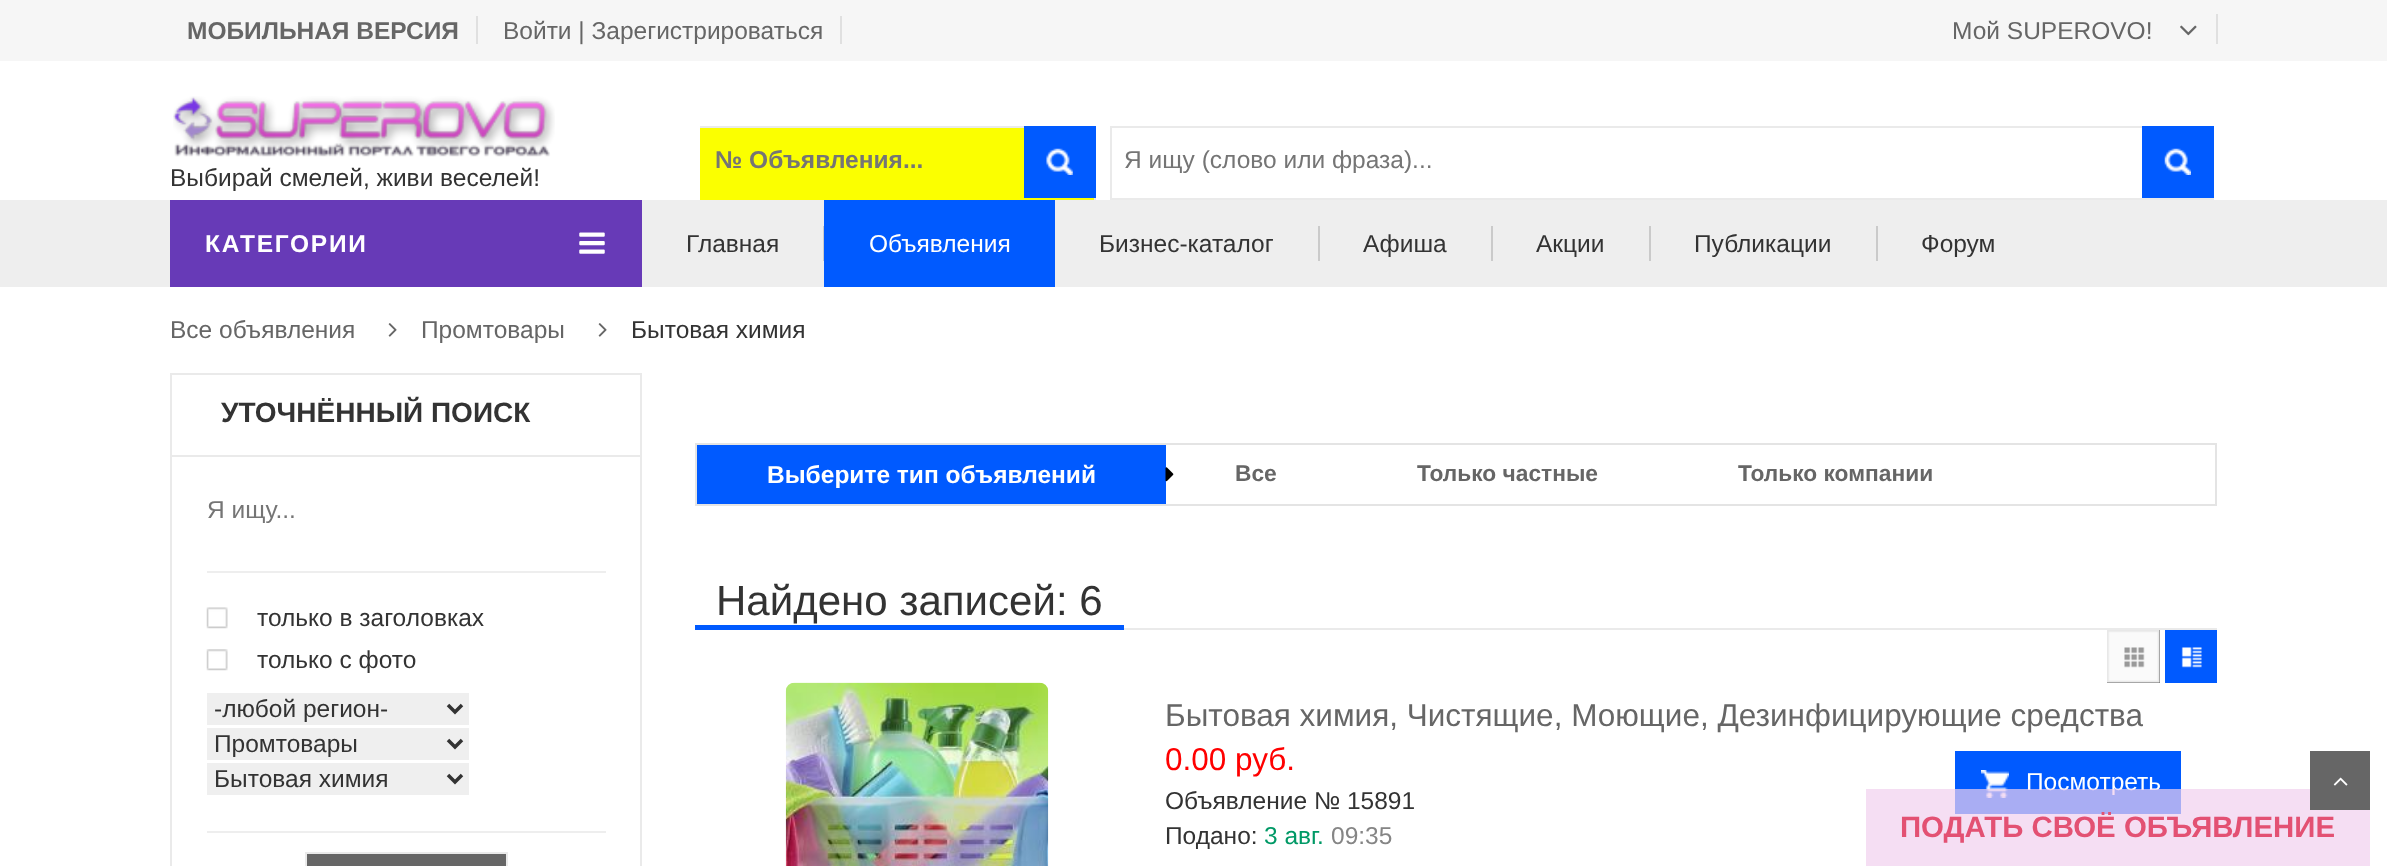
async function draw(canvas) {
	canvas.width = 2387;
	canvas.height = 866;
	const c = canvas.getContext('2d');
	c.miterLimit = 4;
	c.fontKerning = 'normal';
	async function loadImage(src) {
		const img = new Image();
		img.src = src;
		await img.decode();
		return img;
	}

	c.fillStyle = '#fff';
	c.fillRect(0, 0, 2387, 866);
	c.fillStyle = '#f6f6f6';
	c.fillRect(0, 0, 2387, 61);
	c.font = 'bold 24.5px Liberation Sans';
	c.fillStyle = '#666';
	c.fillText('МОБИЛЬНАЯ ВЕРСИЯ', 187, 39);
	c.fillStyle = '#e0e0e0';
	c.fillRect(476, 16, 2, 28);
	c.font = '24.5px Liberation Sans';
	c.fillStyle = '#666';
	c.fillText('Войти | Зарегистрироваться', 503, 39);
	c.fillStyle = '#e0e0e0';
	c.fillRect(840, 16, 2, 28);
	c.fillStyle = '#666';
	c.fillText('Мой SUPEROVO!', 1952, 39);
	c.fillStyle = '#e0e0e0';
	c.fillRect(2216, 14, 2, 30);
	c.drawImage(await loadImage('img1.png'), 2180, 25, 17, 11);
	for (const [x, y, w, h, color] of [
		[700, 126, 324, 2, '#eaeaea'],
		[1094, 198, 2, 2, '#eaeaea'],
		[700, 128, 394, 72, '#fbff00'],
	]) {
		c.fillStyle = color;
		c.fillRect(x, y, w, h);
	}
	c.font = 'bold 24.5px Liberation Sans';
	c.fillStyle = '#757575';
	c.fillText('№ Объявления...', 715, 168);
	c.fillStyle = '#005aff';
	c.fillRect(1024, 126, 72, 72);
	c.drawImage(await loadImage('img2.png'), 1046, 148, 27, 27);
	for (const [x, y, w, h, color] of [
		[1110, 126, 1032, 2, '#eaeaea'],
		[1110, 198, 1104, 2, '#eaeaea'],
		[1110, 126, 2, 74, '#eaeaea'],
	]) {
		c.fillStyle = color;
		c.fillRect(x, y, w, h);
	}
	c.save();
	c.beginPath();
	c.rect(1125, 145, 963, 28);
	c.clip();
	c.font = '24.5px Liberation Sans';
	c.fillStyle = '#757575';
	c.fillText('Я ищу (слово или фраза)...', 1124, 168);
	c.restore();
	c.fillStyle = '#005aff';
	c.fillRect(2142, 126, 72, 72);
	c.drawImage(await loadImage('img3.png'), 2164, 148, 27, 27);
	c.drawImage(await loadImage('img4.png'), 173, 96, 382, 61);
	c.font = '24.5px Liberation Sans';
	c.fillStyle = '#333';
	c.fillText('Выбирай смелей, живи веселей!', 170, 186);
	c.fillStyle = '#eee';
	c.fillRect(0, 200, 2387, 87);
	c.fillStyle = '#673ab7';
	c.fillRect(170, 200, 472, 87);
	c.letterSpacing = '1.75px';
	c.font = 'bold 24.5px Liberation Sans';
	c.fillStyle = '#fff';
	c.fillText('КАТЕГОРИИ', 205, 252);
	c.drawImage(await loadImage('img5.png'), 579, 232, 26, 22);
	c.fillStyle = '#cacaca';
	c.fillRect(823, 226, 1, 35);
	c.letterSpacing = '0px';
	c.font = '24.5px Liberation Sans';
	c.fillStyle = '#333';
	c.fillText('Главная', 686, 252);
	c.fillStyle = '#005aff';
	c.fillRect(824, 200, 231, 87);
	c.fillStyle = '#fff';
	c.fillText('Объявления', 869, 252);
	c.fillStyle = '#cacaca';
	c.fillRect(1318, 226, 2, 35);
	c.fillStyle = '#333';
	c.fillText('Бизнес-каталог', 1099, 252);
	c.fillStyle = '#cacaca';
	c.fillRect(1491, 226, 2, 35);
	c.fillStyle = '#333';
	c.fillText('Афиша', 1363, 252);
	c.fillStyle = '#cacaca';
	c.fillRect(1649, 226, 2, 35);
	c.fillStyle = '#333';
	c.fillText('Акции', 1536, 252);
	c.fillStyle = '#cacaca';
	c.fillRect(1876, 226, 2, 35);
	c.fillStyle = '#333';
	c.fillText('Публикации', 1694, 252);
	c.fillText('Форум', 1921, 252);
	c.fillStyle = '#666';
	c.fillText('Все объявления', 170, 338);
	c.drawImage(await loadImage('img6.png'), 388, 323, 9, 14);
	c.fillText('Промтовары', 421, 338);
	c.drawImage(await loadImage('img6.png'), 598, 323, 9, 14);
	c.fillStyle = '#333';
	c.fillText('Бытовая химия', 631, 338);
	c.strokeStyle = '#eaeaea';
	c.lineWidth = 2;
	c.strokeRect(171, 374, 470, 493);
	c.fillStyle = '#eaeaea';
	c.fillRect(172, 455, 469, 2);
	c.font = 'bold 28px Liberation Sans';
	c.fillStyle = '#333';
	c.fillText('УТОЧНЁННЫЙ ПОИСК', 221, 422);
	c.font = '24.5px Liberation Sans';
	c.fillStyle = '#757575';
	c.fillText('Я ищу...', 207, 518);
	c.fillStyle = '#eee';
	c.fillRect(207, 571, 399, 2);
	c.drawImage(await loadImage('img7.png'), 206, 607, 22, 22);
	c.fillStyle = '#333';
	c.fillText('только в заголовках', 257, 626);
	c.drawImage(await loadImage('img8.png'), 206, 649, 22, 22);
	c.fillText('только с фото', 257, 668);
	c.fillStyle = '#efefef';
	c.fillRect(207, 693, 262, 32);
	c.beginPath();
	c.moveTo(448, 705);
	c.lineTo(455, 712);
	c.lineTo(462, 705);
	c.strokeStyle = '#333';
	c.lineWidth = 3.5;
	c.stroke();
	c.fillStyle = '#333';
	c.fillText('-любой регион-', 214, 717);
	c.fillStyle = '#efefef';
	c.fillRect(207, 728, 262, 32);
	c.beginPath();
	c.moveTo(448, 740);
	c.lineTo(455, 747);
	c.lineTo(462, 740);
	c.stroke();
	c.fillStyle = '#333';
	c.fillText('Промтовары', 214, 752);
	c.fillStyle = '#efefef';
	c.fillRect(207, 763, 262, 32);
	c.beginPath();
	c.moveTo(448, 775);
	c.lineTo(455, 782);
	c.lineTo(462, 775);
	c.stroke();
	c.fillStyle = '#333';
	c.fillText('Бытовая химия', 214, 787);
	c.fillStyle = '#eee';
	c.fillRect(207, 831, 399, 2);
	c.fillStyle = '#666';
	c.beginPath();
	c.rect(306, 853, 201, 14);
	c.fill();
	c.strokeStyle = '#eaeaea';
	c.lineWidth = 2;
	c.stroke();
	c.strokeStyle = '#e4e4e4';
	c.strokeRect(696, 444, 1520, 61);
	c.fillStyle = '#005aff';
	c.fillRect(697, 445, 469, 59);
	c.font = 'bold 24.5px Liberation Sans';
	c.fillStyle = '#fff';
	c.fillText('Выберите тип объявлений', 767, 483);
	c.drawImage(await loadImage('img9.png'), 1165, 467, 9, 15);
	c.font = 'bold 22.75px Liberation Sans';
	c.fillStyle = '#666';
	for (const [text, x, y] of [
		['Все', 1235, 481],
		['Только частные', 1417, 481],
		['Только компании', 1738, 481],
	]) {
		c.fillText(text, x, y);
	}
	c.fillStyle = '#eaeaea';
	c.fillRect(1124, 628, 1093, 2);
	c.fillStyle = '#005aff';
	c.fillRect(695, 625, 429, 5);
	c.font = '42px Liberation Sans';
	c.fillStyle = '#333';
	c.fillText('Найдено записей: 6', 716, 615);
	c.fillStyle = '#666';
	c.fillRect(2107, 630, 53, 53);
	c.drawImage(await loadImage('img10.png'), 2107, 630, 53, 53);
	c.fillStyle = '#005aff';
	c.fillRect(2165, 630, 52, 53);
	c.drawImage(await loadImage('img11.png'), 2181, 647, 21, 21);
	c.font = '31.5px Liberation Sans';
	c.fillStyle = '#666';
	c.fillText('Бытовая химия, Чистящие, Моющие, Дезинфицирующие средства', 1165, 726);
	c.fillStyle = '#f00';
	c.fillText('0.00 руб.', 1165, 770);
	c.font = '24.5px Liberation Sans';
	c.fillStyle = '#333';
	c.fillText('Объявление № 15891', 1165, 809);
	c.fillText('Подано:', 1165, 844);
	c.fillStyle = '#096';
	c.fillText('3 авг.', 1264, 844);
	c.fillStyle = '#858585';
	c.fillText('09:35', 1331, 844);
	c.drawImage(await loadImage('img12.png'), 785, 682, 264, 184);
	c.fillStyle = '#005aff';
	c.fillRect(1955, 751, 226, 63);
	c.drawImage(await loadImage('img13.png'), 1981, 770, 28, 28);
	c.fillStyle = '#fff';
	c.fillText('Посмотреть', 2026, 790);
	c.fillStyle = '#f1d0eeb3';
	c.fillRect(1866, 789, 504, 77);
	c.fillStyle = '#666';
	c.fillRect(2310, 751, 60, 59);
	c.drawImage(await loadImage('img14.png'), 2333, 777, 15, 9);
	c.font = 'bold 29.4px Liberation Sans';
	c.fillStyle = '#e35173';
	c.fillText('ПОДАТЬ СВОЁ ОБЪЯВЛЕНИЕ', 1900, 837);
}

draw(document.querySelector('canvas'));
